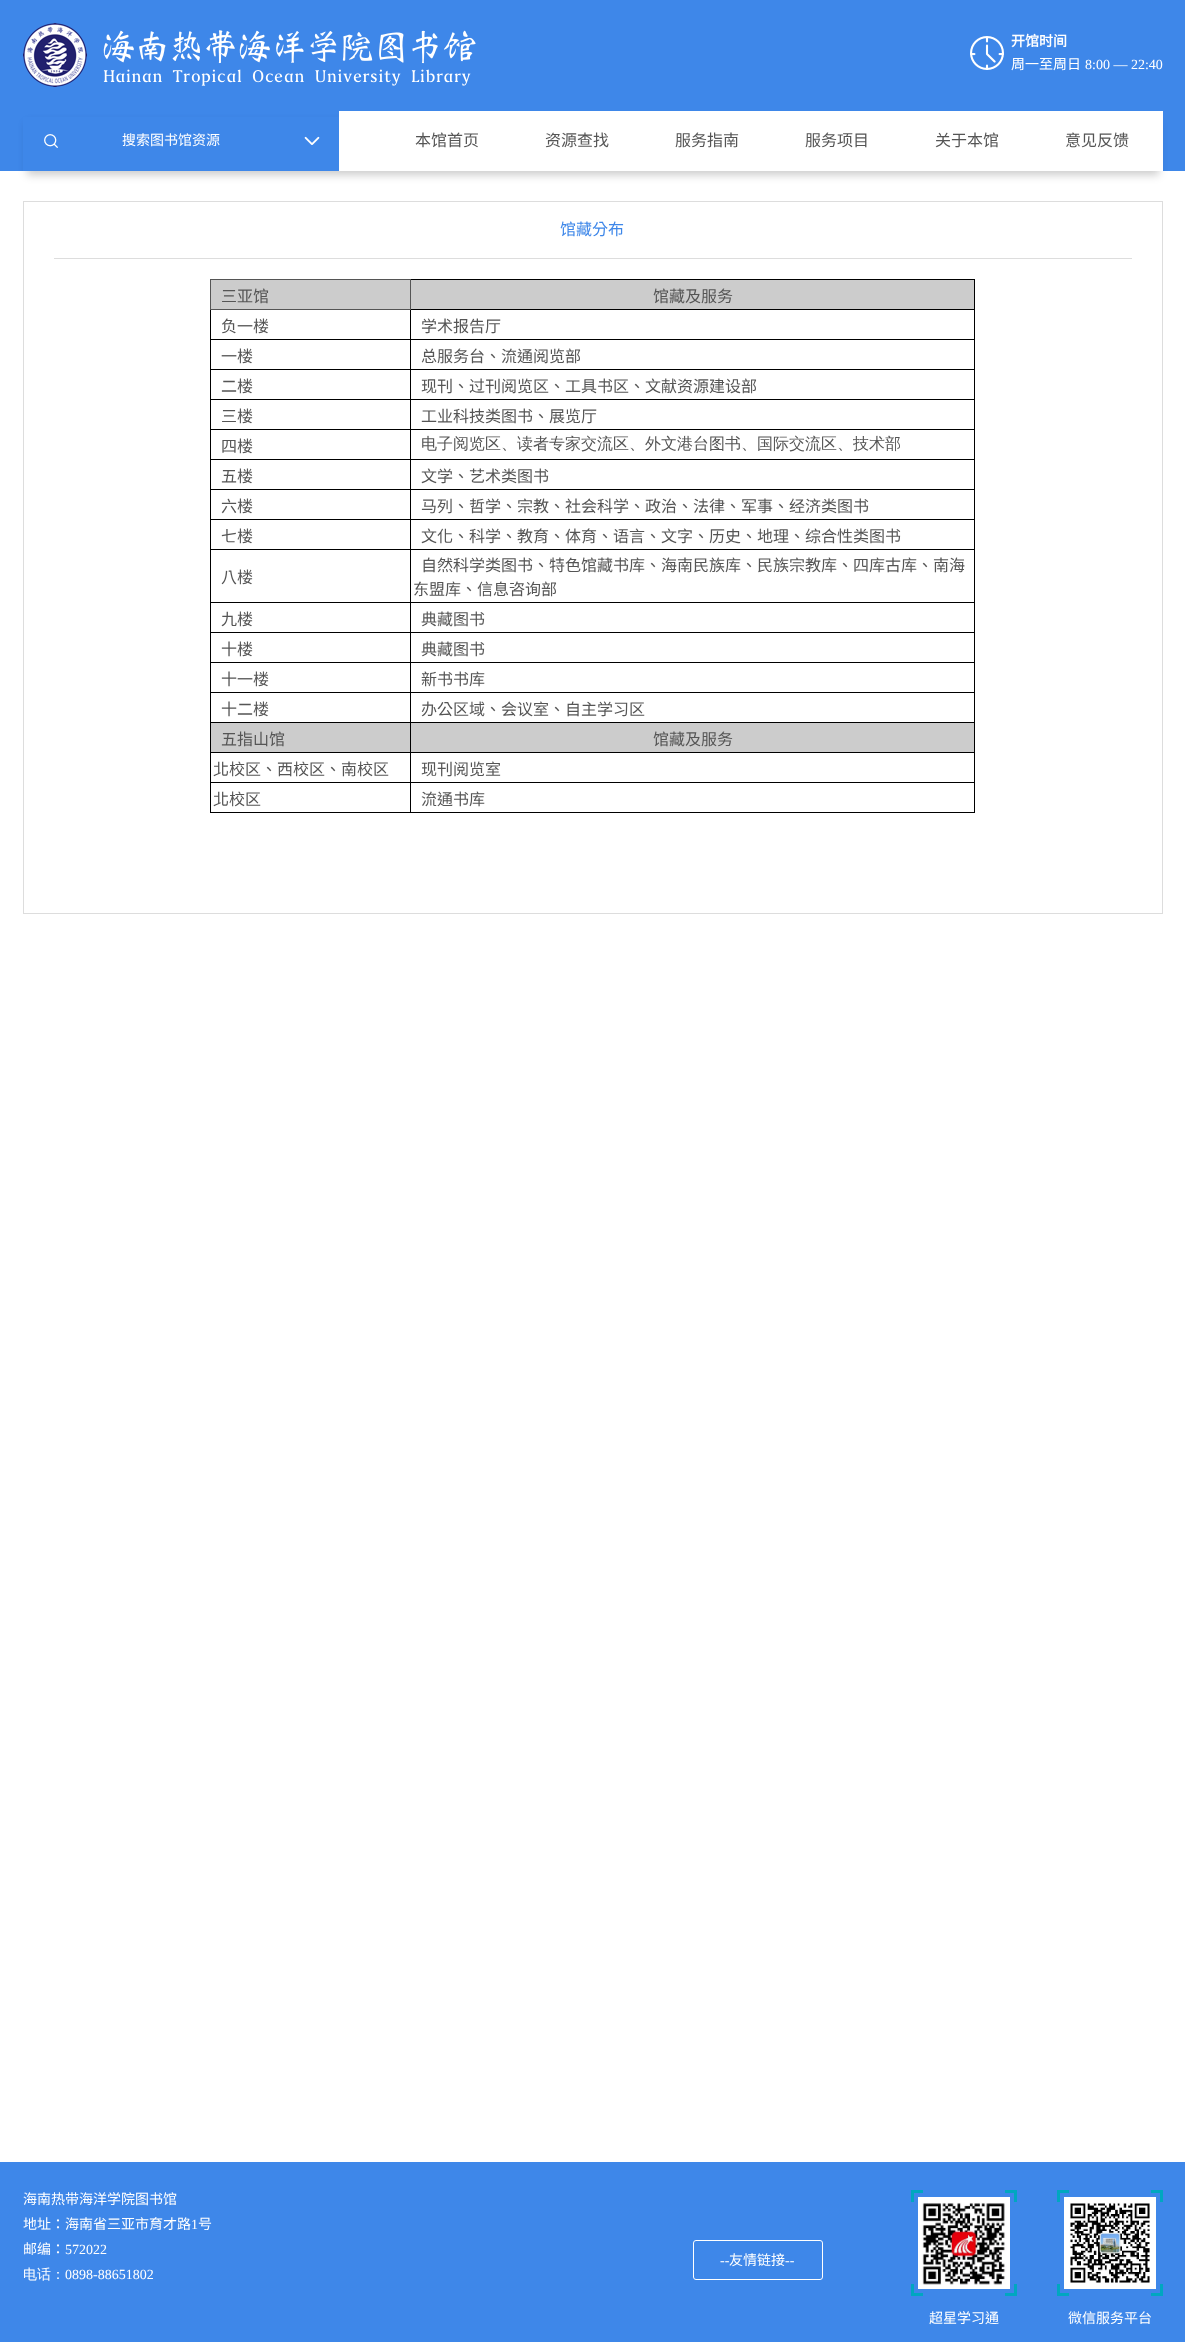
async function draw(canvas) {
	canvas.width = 1185;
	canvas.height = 2342;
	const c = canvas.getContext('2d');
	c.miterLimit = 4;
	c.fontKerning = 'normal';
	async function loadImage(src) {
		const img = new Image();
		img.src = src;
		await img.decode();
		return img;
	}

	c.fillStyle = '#fff';
	c.fillRect(0, 0, 1185, 2342);
	c.fillStyle = '#3e87e9';
	c.fillRect(0, 0, 1185, 171);
	c.drawImage(await loadImage('img1.png'), 23, 23, 453, 64);
	c.drawImage(await loadImage('img2.png'), 970, 36, 34, 34);
	c.font = 'bold 14px Noto Sans CJK TC';
	c.fillStyle = '#fff';
	c.fillText('开馆时间', 1011, 46);
	c.font = '14px Noto Sans CJK TC';
	c.fillText('周一至周日', 1011, 69);
	c.font = '14px Liberation Serif';
	c.fillText('8:00 — 22:40', 1085, 69);
	c.fillStyle = '#00000033';
	c.filter = 'blur(4px)';
	c.beginPath();
	c.rect(27, 123, 1132, 52);
	c.fill();
	c.filter = 'none';
	c.fillStyle = '#fff';
	c.fillRect(339, 111, 824, 60);
	c.fillStyle = '#3e87e9';
	c.fillRect(23, 117, 316, 54);
	c.drawImage(await loadImage('img3.png'), 44, 134, 14, 14);
	c.font = '14px Noto Sans CJK TC';
	c.fillStyle = '#fff';
	c.fillText('搜索图书馆资源', 122, 145);
	c.drawImage(await loadImage('img4.png'), 304, 136, 16, 9);
	c.font = '16px Noto Sans CJK TC';
	c.fillStyle = '#555';
	for (const [text, x, y] of [
		['本馆首页', 415, 146],
		['资源查找', 545, 146],
		['服务指南', 675, 146],
		['服务项目', 805, 146],
		['关于本馆', 935, 146],
		['意见反馈', 1065, 146],
	]) {
		c.fillText(text, x, y);
	}
	c.strokeStyle = '#ddd';
	c.strokeRect(23.5, 201.5, 1139, 712);
	c.fillStyle = '#ddd';
	c.fillRect(54, 258, 1078, 1);
	c.fillStyle = '#3e87e9';
	c.fillText('馆藏分布', 560, 235);
	for (const [x, y, w, h, color] of [
		[211, 280, 199, 29, '#ccc'],
		[410, 279, 565, 1, '#000'],
		[210, 279, 201, 1, '#555'],
		[974, 309, 1, 504, '#000'],
		[974, 279, 1, 31, '#000'],
		[410, 812, 565, 1, '#000'],
		[410, 782, 1, 31, '#000'],
		[410, 782, 565, 1, '#000'],
		[410, 752, 1, 31, '#000'],
		[410, 752, 565, 1, '#000'],
		[410, 722, 1, 31, '#000'],
		[410, 722, 565, 1, '#000'],
		[410, 692, 1, 31, '#000'],
		[410, 692, 565, 1, '#000'],
		[410, 662, 1, 31, '#000'],
		[410, 662, 565, 1, '#000'],
		[410, 632, 1, 31, '#000'],
		[410, 632, 565, 1, '#000'],
		[410, 602, 1, 31, '#000'],
		[410, 602, 565, 1, '#000'],
		[410, 549, 1, 54, '#000'],
		[410, 549, 565, 1, '#000'],
		[410, 519, 1, 31, '#000'],
		[410, 519, 565, 1, '#000'],
		[410, 489, 1, 31, '#000'],
		[410, 489, 565, 1, '#000'],
		[410, 459, 1, 31, '#000'],
		[410, 459, 565, 1, '#000'],
		[410, 429, 1, 31, '#000'],
		[410, 429, 565, 1, '#000'],
		[410, 399, 1, 31, '#000'],
		[410, 399, 565, 1, '#000'],
		[410, 369, 1, 31, '#000'],
		[410, 369, 565, 1, '#000'],
		[410, 339, 1, 31, '#000'],
		[410, 339, 565, 1, '#000'],
		[410, 309, 1, 31, '#000'],
		[410, 309, 565, 1, '#000'],
		[410, 279, 1, 31, '#555'],
		[210, 812, 201, 1, '#000'],
		[210, 782, 1, 31, '#000'],
		[210, 782, 201, 1, '#000'],
		[210, 752, 1, 31, '#000'],
		[210, 752, 201, 1, '#000'],
		[210, 722, 1, 31, '#000'],
		[210, 722, 201, 1, '#000'],
		[210, 692, 1, 31, '#000'],
		[210, 692, 201, 1, '#000'],
		[210, 662, 1, 31, '#000'],
		[210, 662, 201, 1, '#000'],
		[210, 632, 1, 31, '#000'],
		[210, 632, 201, 1, '#000'],
		[210, 602, 1, 31, '#000'],
		[210, 602, 201, 1, '#000'],
		[210, 549, 1, 54, '#000'],
		[210, 549, 201, 1, '#000'],
		[210, 519, 1, 31, '#000'],
		[210, 519, 201, 1, '#000'],
		[210, 489, 1, 31, '#000'],
		[210, 489, 201, 1, '#000'],
		[210, 459, 1, 31, '#000'],
		[210, 459, 201, 1, '#000'],
		[210, 429, 1, 31, '#000'],
		[210, 429, 201, 1, '#000'],
		[210, 399, 1, 31, '#000'],
		[210, 399, 201, 1, '#000'],
		[210, 369, 1, 31, '#000'],
		[210, 369, 201, 1, '#000'],
		[210, 339, 1, 31, '#000'],
		[210, 339, 201, 1, '#000'],
		[210, 309, 1, 31, '#000'],
		[210, 309, 201, 1, '#555'],
		[210, 279, 1, 31, '#555'],
	]) {
		c.fillStyle = color;
		c.fillRect(x, y, w, h);
	}
	c.fillText('三亚馆', 221, 302);
	c.fillStyle = '#ccc';
	c.fillRect(411, 280, 563, 29);
	c.fillStyle = '#555';
	for (const [text, x, y] of [
		['馆藏及服务', 653, 302],
		['负一楼', 221, 332],
		['学术报告厅', 421, 332],
		['一楼', 221, 362],
		['总服务台、流通阅览部', 421, 362],
		['二楼', 221, 392],
		['现刊、过刊阅览区、工具书区、文献资源建设部', 421, 392],
		['三楼', 221, 422],
		['工业科技类图书、展览厅', 421, 422],
		['四楼', 221, 452],
	]) {
		c.fillText(text, x, y);
	}
	c.font = '500 16px WenQuanYi Zen Hei';
	c.fillText('电子阅览区、读者专家交流区、外文港台图书、国际交流区、技术部', 421, 449);
	c.font = '16px Noto Sans CJK TC';
	for (const [text, x, y] of [
		['五楼', 221, 482],
		['文学、艺术类图书', 421, 482],
		['六楼', 221, 512],
		['马列、哲学、宗教、社会科学、政治、法律、军事、经济类图书', 421, 512],
		['七楼', 221, 542],
		['文化、科学、教育、体育、语言、文字、历史、地理、综合性类图书', 421, 542],
		['八楼', 221, 583],
		['自然科学类图书、特色馆藏书库、海南民族库、民族宗教库、四库古库、南海', 421, 571],
		['东盟库、信息咨询部', 413, 595],
		['九楼', 221, 625],
		['典藏图书', 421, 625],
		['十楼', 221, 655],
		['典藏图书', 421, 655],
		['十一楼', 221, 685],
		['新书书库', 421, 685],
		['十二楼', 221, 715],
		['办公区域、会议室、自主学习区', 421, 715],
	]) {
		c.fillText(text, x, y);
	}
	c.fillStyle = '#ccc';
	c.fillRect(211, 723, 199, 29);
	c.fillStyle = '#555';
	c.fillText('五指山馆', 221, 745);
	c.fillStyle = '#ccc';
	c.fillRect(411, 723, 563, 29);
	c.fillStyle = '#555';
	for (const [text, x, y] of [
		['馆藏及服务', 653, 745],
		['北校区、西校区、南校区', 213, 775],
		['现刊阅览室', 421, 775],
		['北校区', 213, 805],
		['流通书库', 421, 805],
	]) {
		c.fillText(text, x, y);
	}
	c.fillStyle = '#3e87e9';
	c.fillRect(0, 2162, 1185, 180);
	c.font = '14px Noto Sans CJK TC';
	c.fillStyle = '#fff';
	c.fillText('海南热带海洋学院图书馆', 23, 2204);
	c.fillText('地址：海南省三亚市育才路', 23, 2229);
	c.font = '14px Liberation Serif';
	c.fillText('1', 191, 2229);
	c.font = '14px Noto Sans CJK TC';
	c.fillText('号', 198, 2229);
	c.fillText('邮编：', 23, 2254);
	c.font = '14px Liberation Serif';
	c.fillText('572022', 65, 2254);
	c.font = '500 14px WenQuanYi Zen Hei';
	c.fillText('电话：', 23, 2279);
	c.font = '14px Liberation Serif';
	c.fillText('0898-88651802', 65, 2279);
	c.beginPath();
	c.roundRect(693.5, 2240.5, 129, 39, 2.5);
	c.strokeStyle = '#fff';
	c.stroke();
	c.fillText('--', 720, 2265);
	c.font = '14px Noto Sans CJK TC';
	c.fillText('友情链接', 729, 2265);
	c.font = '14px Liberation Serif';
	c.fillText('--', 785, 2265);
	c.drawImage(await loadImage('img5.png'), 911, 2190, 106, 106);
	c.drawImage(await loadImage('img6.png'), 918, 2197, 92, 92);
	c.font = '14px Noto Sans CJK TC';
	c.fillText('超星学习通', 929, 2323);
	c.drawImage(await loadImage('img5.png'), 1057, 2190, 106, 106);
	c.drawImage(await loadImage('img7.png'), 1064, 2197, 92, 92);
	c.fillText('微信服务平台', 1068, 2323);
}

draw(document.querySelector('canvas'));
